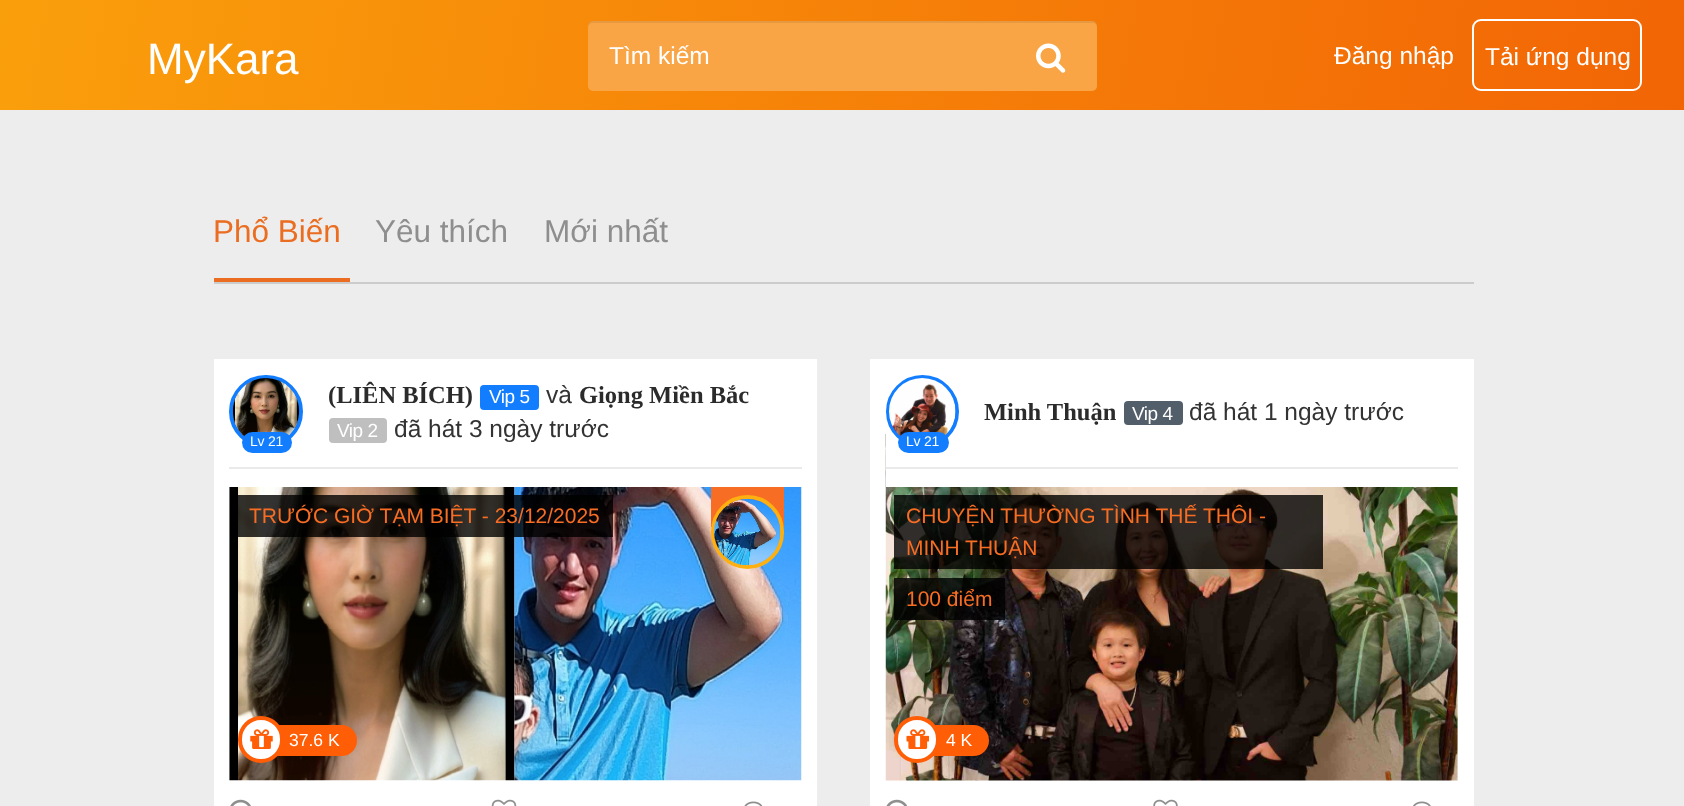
async function draw(canvas) {
	canvas.width = 1684;
	canvas.height = 806;
	const c = canvas.getContext('2d');
	c.miterLimit = 4;
	c.fontKerning = 'normal';
	async function loadImage(src) {
		const img = new Image();
		img.src = src;
		await img.decode();
		return img;
	}
	let gradient;

	c.fillStyle = '#ededed';
	c.fillRect(0, 0, 1684, 806);
	gradient = c.createLinearGradient(20, -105, 1665, 215);
	gradient.addColorStop(0, '#fa9f0c');
	gradient.addColorStop(1, '#f26505');
	c.fillStyle = gradient;
	c.fillRect(0, 0, 1684, 110);
	c.font = '44px Liberation Sans';
	c.fillStyle = '#fff';
	c.fillText('MyKara', 147, 74);
	c.fillStyle = '#f9a546';
	c.beginPath();
	c.roundRect(588, 21, 509, 70, 5);
	c.fill();
	c.fillStyle = '#00000012';
	c.beginPath();
	c.moveTo(593, 23);
	c.lineTo(1092, 23);
	c.bezierCurveTo(1095, 23, 1097, 25, 1097, 28);
	c.lineTo(1097, 26);
	c.bezierCurveTo(1097, 23, 1095, 21, 1092, 21);
	c.lineTo(593, 21);
	c.bezierCurveTo(590, 21, 588, 23, 588, 26);
	c.lineTo(588, 28);
	c.bezierCurveTo(588, 25, 590, 23, 593, 23);
	c.closePath();
	c.fill();
	c.font = '24.5px Liberation Sans';
	c.fillStyle = '#fff';
	c.fillText('Tìm kiếm', 609, 64);
	c.drawImage(await loadImage('img1.png'), 1036, 43, 30, 30);
	c.fillText('Đăng nhập', 1334, 64);
	c.beginPath();
	c.roundRect(1473, 20, 168, 70, 8);
	c.strokeStyle = '#fff';
	c.lineWidth = 2;
	c.stroke();
	c.fillText('Tải ứng dụng', 1485, 65);
	c.fillStyle = '#ccc';
	c.fillRect(214, 282, 1260, 2);
	c.fillStyle = '#eb6d21';
	c.fillRect(214, 278, 136, 4);
	c.font = '31.5px Liberation Sans';
	c.fillText('Phổ Biến', 213, 242);
	c.fillStyle = '#8e8e8e';
	c.fillText('Yêu thích', 375, 242);
	c.fillText('Mới nhất', 544, 242);
	c.fillStyle = '#fff';
	c.fillRect(214, 359, 603, 447);
	c.fillStyle = '#eaeaea';
	c.fillRect(229, 467, 573, 2);
	c.beginPath();
	c.roundRect(231, 377, 70, 69, 34.5);
	c.strokeStyle = '#127eff';
	c.lineWidth = 4;
	c.stroke();
	c.drawImage(await loadImage('img2.png'), 232, 378, 68, 59);
	c.fillStyle = '#127eff';
	c.beginPath();
	c.roundRect(242, 432, 50, 21, 10.5);
	c.fill();
	c.letterSpacing = '-0.25px';
	c.font = '14px Liberation Sans';
	c.fillStyle = '#fff';
	c.fillText('Lv 21', 250, 446);
	c.letterSpacing = '0px';
	c.font = 'bold 24.5px Liberation Serif';
	c.fillStyle = '#2b2b2b';
	c.fillText('(LIÊN BÍCH)', 328, 403);
	c.fillStyle = '#127eff';
	c.beginPath();
	c.roundRect(480, 385, 59, 25, 4);
	c.fill();
	c.letterSpacing = '-0.5px';
	c.font = '19px Liberation Sans';
	c.fillStyle = '#fff';
	c.fillText('Vip 5', 489, 403);
	c.letterSpacing = '0px';
	c.font = '24.5px Liberation Sans';
	c.fillStyle = '#333';
	c.fillText('và', 546, 403);
	c.font = 'bold 24.5px Liberation Serif';
	c.fillStyle = '#2b2b2b';
	c.fillText('Giọng Miền Bắc', 579, 403);
	c.fillStyle = '#bfbfbf';
	c.beginPath();
	c.roundRect(329, 418, 58, 25, 4);
	c.fill();
	c.letterSpacing = '-0.5px';
	c.font = '19px Liberation Sans';
	c.fillStyle = '#fff';
	c.fillText('Vip 2', 337, 437);
	c.letterSpacing = '0px';
	c.font = '24.5px Liberation Sans';
	c.fillStyle = '#333';
	c.fillText('đã hát 3 ngày trước', 394, 437);
	c.drawImage(await loadImage('img3.png'), 229, 487, 286, 294);
	c.drawImage(await loadImage('img4.png'), 514, 487, 288, 294);
	c.fillStyle = '#000000cc';
	c.fillRect(238, 495, 375, 42);
	c.font = '21px Liberation Sans';
	c.fillStyle = '#f76d24';
	c.fillText('TRƯỚC GIỜ TẠM BIỆT - 23/12/2025', 249, 523);
	c.fillStyle = '#ff5d06';
	c.beginPath();
	c.roundRect(277, 725, 80, 31, [0, 15.5, 15.5, 0]);
	c.fill();
	c.fillStyle = '#fff';
	c.beginPath();
	c.roundRect(240, 718, 42, 43, 21);
	c.fill();
	c.strokeStyle = '#ff5d06';
	c.stroke();
	c.drawImage(await loadImage('img5.png'), 250, 729, 23, 20);
	c.font = '17.5px Liberation Sans';
	c.fillText('37.6 K', 289, 746);
	c.fillStyle = '#f76d24';
	c.fillRect(711, 487, 73, 40);
	c.beginPath();
	c.roundRect(713, 497, 69, 70, 34.5);
	c.strokeStyle = '#ffb011';
	c.stroke();
	c.drawImage(await loadImage('img6.png'), 714, 498, 67, 68);
	c.drawImage(await loadImage('img7.png'), 230, 799, 21, 7);
	c.drawImage(await loadImage('img8.png'), 491, 799, 26, 7);
	c.drawImage(await loadImage('img9.png'), 744, 801, 19, 5);
	c.fillStyle = '#fff';
	c.fillRect(870, 359, 604, 447);
	c.drawImage(await loadImage('img11.png'), 885, 434, 573, 347);
	c.fillRect(886, 434, 572, 53);
	c.fillStyle = '#eaeaea';
	c.fillRect(886, 467, 572, 2);
	c.font = 'bold 24.5px Liberation Serif';
	c.fillStyle = '#2b2b2b';
	c.fillText('Minh Thuận', 984, 420);
	c.fillStyle = '#525e69';
	c.beginPath();
	c.roundRect(1124, 401, 59, 24, 4);
	c.fill();
	c.letterSpacing = '-0.5px';
	c.font = '19px Liberation Sans';
	c.fillStyle = '#fff';
	c.fillText('Vip 4', 1132, 420);
	c.letterSpacing = '0px';
	c.font = '24.5px Liberation Sans';
	c.fillStyle = '#333';
	c.fillText('đã hát 1 ngày trước', 1189, 420);
	c.beginPath();
	c.arc(922.5, 411.5, 34.5, 0, 2 * Math.PI);
	c.strokeStyle = '#127eff';
	c.stroke();
	c.drawImage(await loadImage('img10.png'), 889, 378, 67, 59);
	c.fillStyle = '#127eff';
	c.beginPath();
	c.roundRect(898, 432, 51, 21, 10.5);
	c.fill();
	c.letterSpacing = '-0.25px';
	c.font = '14px Liberation Sans';
	c.fillStyle = '#fff';
	c.fillText('Lv 21', 906, 446);
	c.fillStyle = '#000000cc';
	c.fillRect(894, 495, 429, 74);
	c.letterSpacing = '0px';
	c.font = '21px Liberation Sans';
	c.fillStyle = '#f76d24';
	c.fillText('CHUYỆN THƯỜNG TÌNH THẾ THÔI -', 906, 523);
	c.fillText('MINH THUẬN', 906, 555);
	c.fillStyle = '#000000cc';
	c.fillRect(894, 578, 111, 42);
	c.fillStyle = '#f76d24';
	c.fillText('100 điểm', 906, 606);
	c.fillStyle = '#ff5d06';
	c.beginPath();
	c.roundRect(933, 725, 56, 31, [0, 15.5, 15.5, 0]);
	c.fill();
	c.fillStyle = '#fff';
	c.beginPath();
	c.roundRect(896, 718, 42, 43, 21);
	c.fill();
	c.strokeStyle = '#ff5d06';
	c.stroke();
	c.drawImage(await loadImage('img12.png'), 906, 729, 23, 20);
	c.font = '17.5px Liberation Sans';
	c.fillText('4 K', 946, 746);
	c.drawImage(await loadImage('img13.png'), 886, 799, 22, 7);
	c.drawImage(await loadImage('img14.png'), 1153, 799, 25, 7);
	c.drawImage(await loadImage('img15.png'), 1413, 801, 18, 5);
}

draw(document.querySelector('canvas'));
